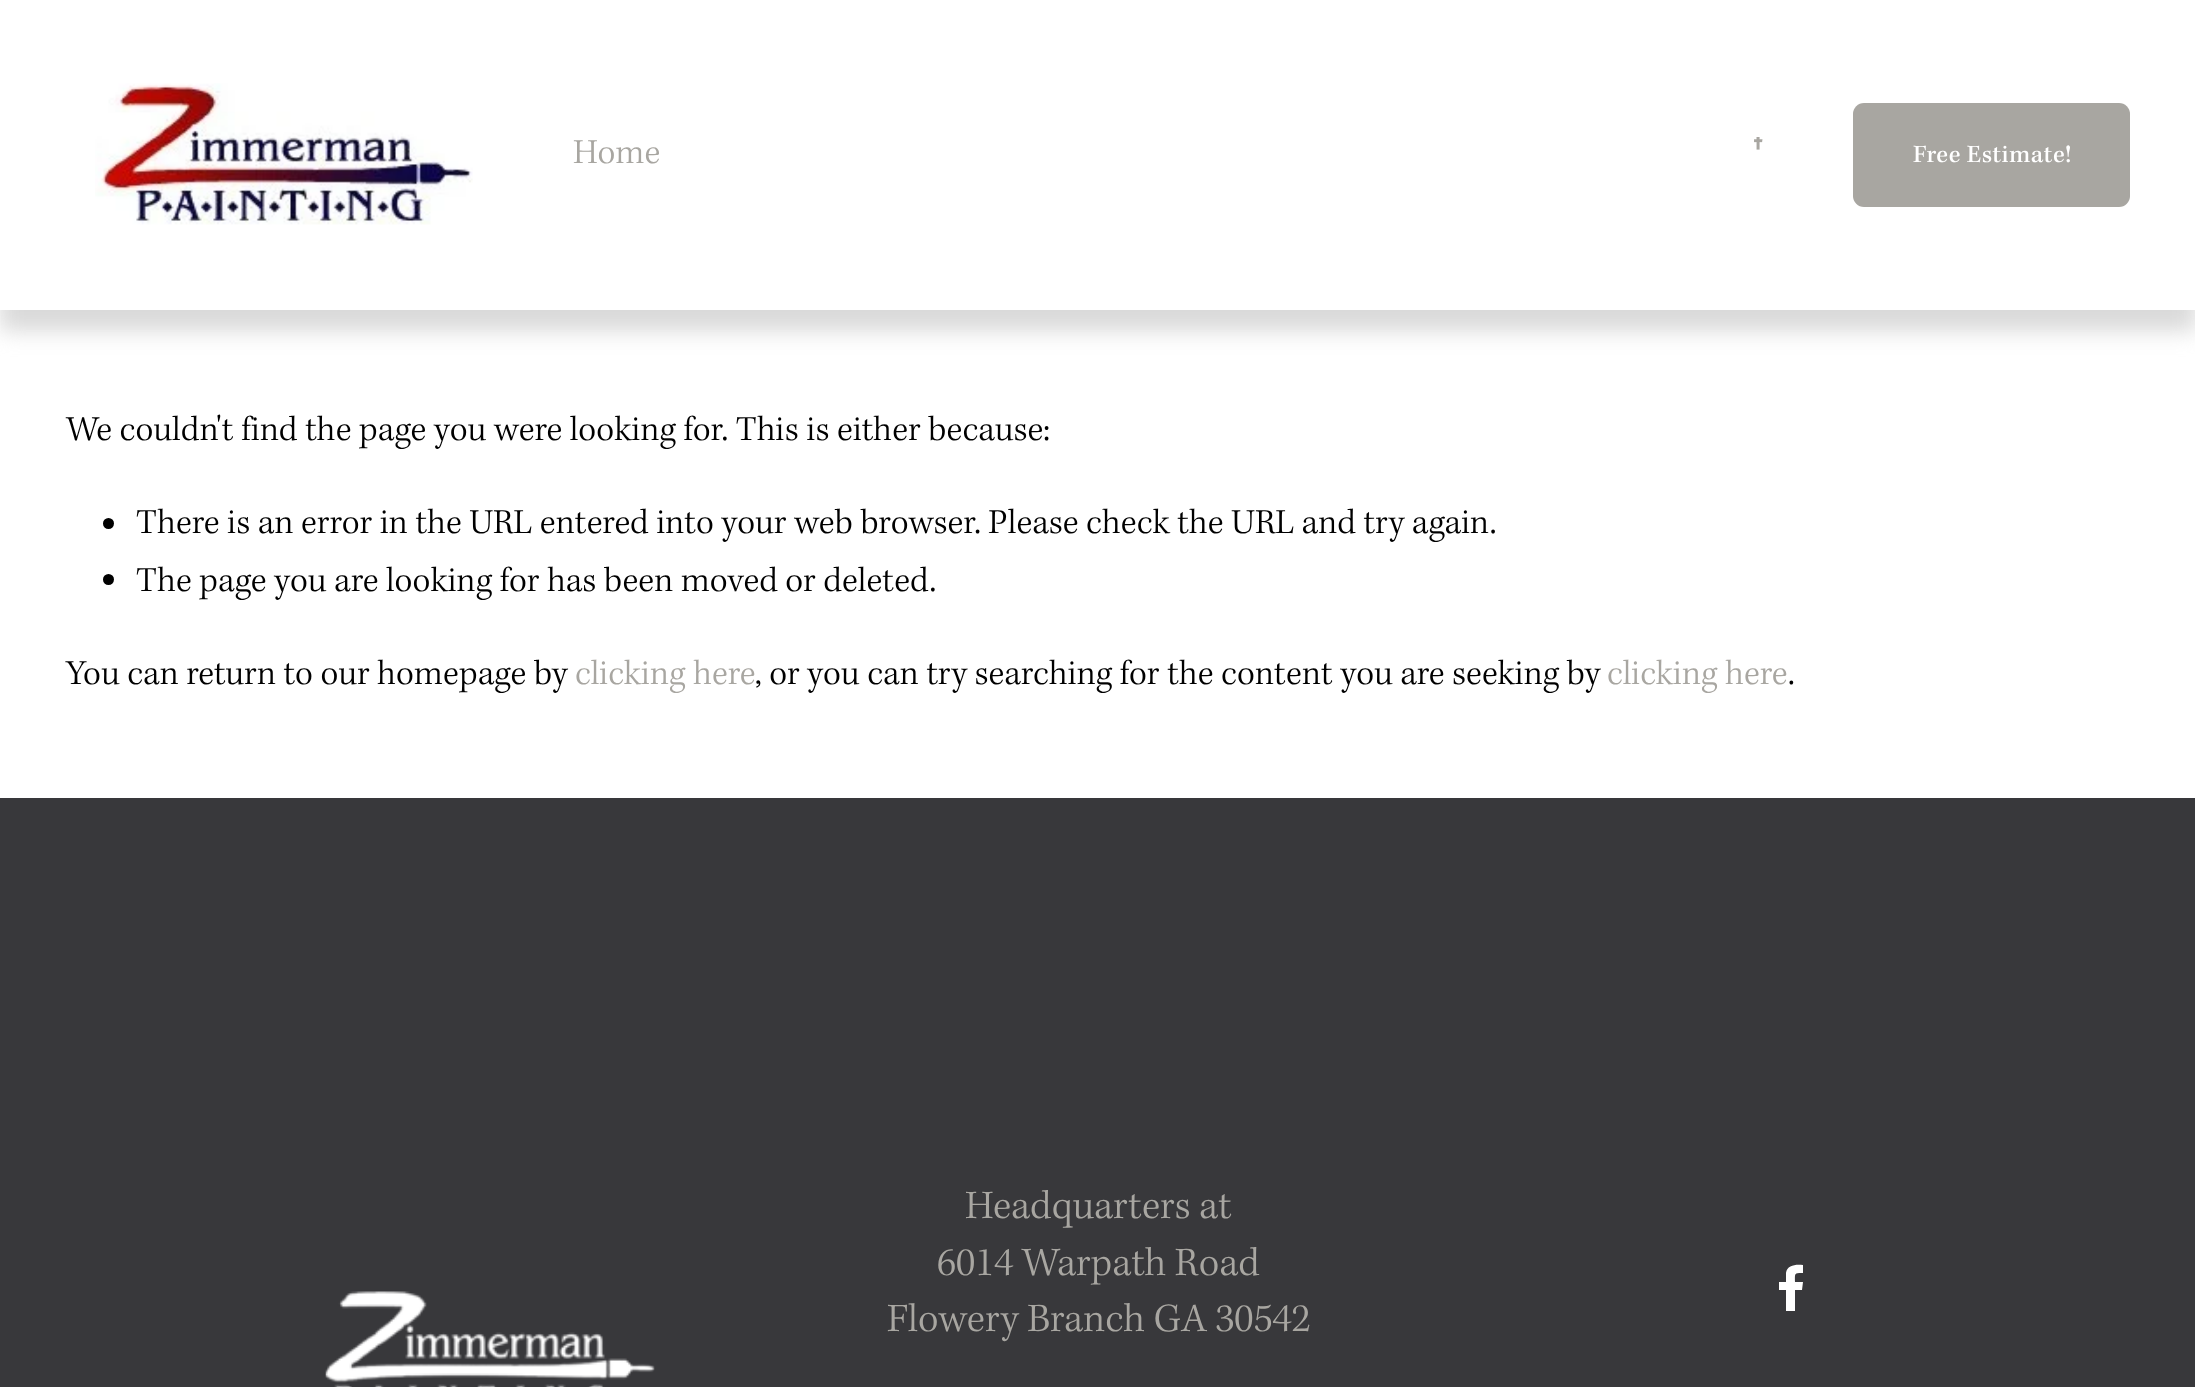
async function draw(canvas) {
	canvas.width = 2195;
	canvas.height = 1387;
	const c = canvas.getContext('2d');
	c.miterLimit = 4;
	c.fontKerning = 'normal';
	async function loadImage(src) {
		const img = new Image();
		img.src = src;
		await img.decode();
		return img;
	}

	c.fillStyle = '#fff';
	c.fillRect(0, 0, 2195, 1387);
	c.save();
	c.beginPath();
	c.moveTo(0, 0);
	c.lineTo(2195, 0);
	c.lineTo(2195, 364);
	c.lineTo(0, 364);
	c.closePath();
	c.moveTo(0, 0);
	c.lineTo(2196, 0);
	c.lineTo(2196, 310);
	c.lineTo(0, 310);
	c.closePath();
	c.clip('evenodd');
	c.fillStyle = '#d9d9d9';
	c.filter = 'blur(10.5px)';
	c.beginPath();
	c.rect(0, 21, 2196, 310);
	c.fill();
	c.filter = 'none';
	c.restore();
	c.drawImage(await loadImage('img1.png'), 95, 83, 378, 142);
	c.font = '300 35.9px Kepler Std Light';
	c.fillStyle = '#a8a6a1';
	c.fillText('Home', 573, 163);
	c.drawImage(await loadImage('img2.png'), 1754, 137, 9, 13);
	c.beginPath();
	c.roundRect(1853, 103, 277, 104, 11);
	c.fill();
	c.letterSpacing = '0.5px';
	c.font = '500 25.5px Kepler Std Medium';
	c.fillStyle = '#fff';
	c.fillText('Free Estimate!', 1913, 162);
	c.letterSpacing = '0px';
	c.font = '300 35.9px Kepler Std Light';
	c.fillStyle = '#000';
	c.fillText('We couldn\'t find the page you were looking for. This is either because:', 66, 440);
	c.beginPath();
	c.arc(108.5, 523.5, 5.5, 0, 2 * Math.PI);
	c.fill();
	c.fillText('There is an error in the URL entered into your web browser. Please check the URL and try again.', 136, 533);
	c.beginPath();
	c.arc(108.5, 579.5, 5.5, 0, 2 * Math.PI);
	c.fill();
	c.fillText('The page you are looking for has been moved or deleted.', 136, 591);
	c.fillText('You can return to our homepage by', 66, 684);
	c.fillStyle = '#a8a6a1';
	c.fillText('clicking here', 575, 684);
	c.fillStyle = '#000';
	c.fillText(', or you can try searching for the', 755, 684);
	c.fillText('content you are seeking by', 1221, 684);
	c.fillStyle = '#a8a6a1';
	c.fillText('clicking here', 1607, 684);
	c.fillStyle = '#000';
	c.fillText('.', 1788, 684);
	c.fillStyle = '#38383b';
	c.fillRect(0, 798, 2195, 589);
	c.drawImage(await loadImage('img3.png'), 325, 1291, 330, 96);
	c.font = '300 41.25px Kepler Std Light';
	c.fillStyle = '#a8a6a1';
	for (const [text, x, y] of [
		['Headquarters at', 965, 1218],
		['6014 Warpath Road', 937, 1275],
		['Flowery Branch GA 30542', 887, 1331],
	]) {
		c.fillText(text, x, y);
	}
	c.fillStyle = '#fff';
	c.beginPath();
	c.moveTo(1795, 1311);
	c.lineTo(1795, 1290);
	c.lineTo(1802, 1290);
	c.lineTo(1803, 1282);
	c.lineTo(1795, 1282);
	c.bezierCurveTo(1795, 1273, 1794, 1273, 1803, 1273);
	c.lineTo(1803, 1265);
	c.bezierCurveTo(1796, 1264, 1787, 1265, 1786, 1273);
	c.lineTo(1786, 1282);
	c.lineTo(1779, 1282);
	c.lineTo(1779, 1290);
	c.lineTo(1786, 1290);
	c.lineTo(1786, 1311);
	c.closePath();
	c.fill();
}

draw(document.querySelector('canvas'));
